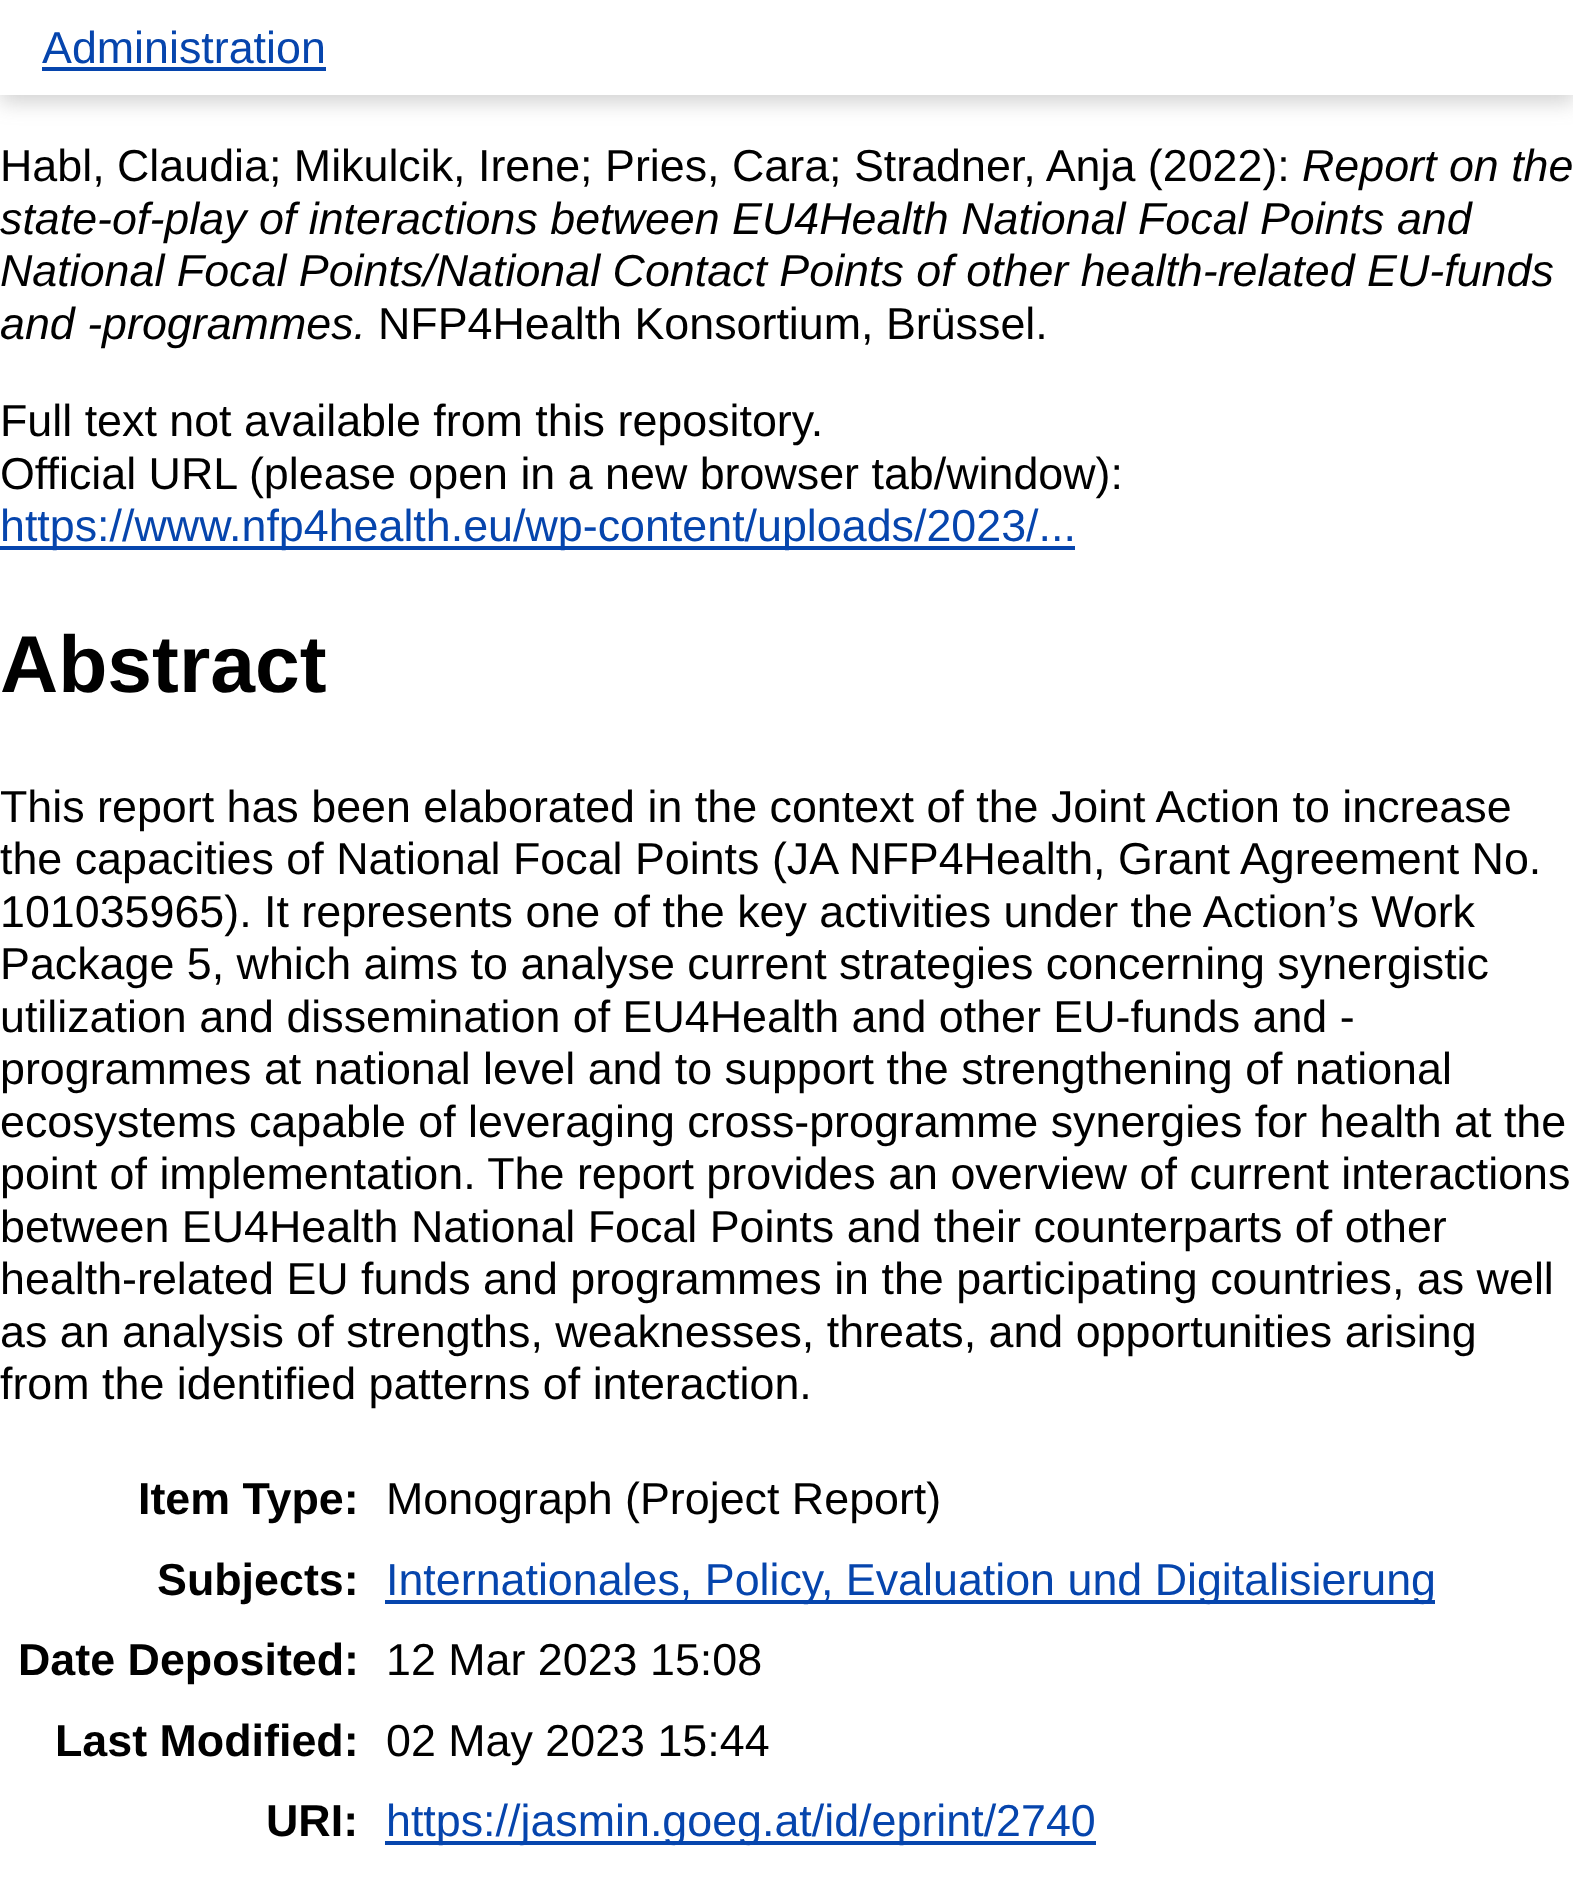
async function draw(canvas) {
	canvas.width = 1573;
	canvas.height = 1893;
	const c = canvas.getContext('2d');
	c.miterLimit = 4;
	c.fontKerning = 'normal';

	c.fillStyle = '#fff';
	c.fillRect(0, 0, 1573, 1893);
	c.fillStyle = '#6464644d';
	c.filter = 'blur(10.5px)';
	c.beginPath();
	c.rect(0, 7, 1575, 95);
	c.fill();
	c.filter = 'none';
	c.fillStyle = '#fff';
	c.fillRect(0, 0, 1573, 95);
	c.font = '44.8px Liberation Sans';
	c.fillStyle = '#0645ad';
	c.fillText('Administration', 42, 63);
	c.fillRect(42, 67, 284, 4);
	c.fillStyle = '#000';
	c.fillText('Habl, Claudia; Mikulcik, Irene; Pries, Cara; Stradner, Anja (2022):', 0, 181);
	c.font = 'italic 44.8px Liberation Sans';
	for (const [text, x, y] of [
		['Report on the', 1302, 181],
		['state-of-play of interactions between EU4Health National Focal Points and', 0, 234],
		['National Focal Points/National Contact Points of other health-related EU-funds', 0, 286],
		['and -programmes.', 0, 339],
	]) {
		c.fillText(text, x, y);
	}
	c.font = '44.8px Liberation Sans';
	for (const [text, x, y] of [
		['NFP4Health Konsortium, Brüssel.', 378, 339],
		['Full text not available from this repository.', 0, 436],
		['Official URL (please open in a new browser tab/window):', 0, 489],
	]) {
		c.fillText(text, x, y);
	}
	c.fillStyle = '#0645ad';
	c.fillRect(0, 546, 1075, 4);
	c.fillText('https://www.nfp4health.eu/wp-content/uploads/2023/...', 0, 541);
	c.font = 'bold 80.5px Liberation Sans';
	c.fillStyle = '#000';
	c.fillText('Abstract', 0, 692);
	c.font = '44.8px Liberation Sans';
	for (const [text, x, y] of [
		['This report has been elaborated in the context of the Joint Action to increase', 0, 822],
		['the capacities of National Focal Points (JA NFP4Health, Grant Agreement No.', 0, 874],
		['101035965). It represents one of the key activities under the Action’s Work', 0, 927],
		['Package 5, which aims to analyse current strategies concerning synergistic', 0, 979],
		['utilization and dissemination of EU4Health and other EU-funds and -', 0, 1032],
		['programmes at national level and to support the strengthening of national', 0, 1084],
		['ecosystems capable of leveraging cross-programme synergies for health at the', 0, 1137],
		['point of implementation. The report provides an overview of current interactions', 0, 1189],
		['between EU4Health National Focal Points and their counterparts of other', 0, 1242],
		['health-related EU funds and programmes in the participating countries, as well', 0, 1294],
		['as an analysis of strengths, weaknesses, threats, and opportunities arising', 0, 1347],
		['from the identified patterns of interaction.', 0, 1399],
	]) {
		c.fillText(text, x, y);
	}
	c.font = 'bold 44.8px Liberation Sans';
	c.fillText('Item Type:', 138, 1514);
	c.font = '44.8px Liberation Sans';
	c.fillText('Monograph (Project Report)', 386, 1514);
	c.font = 'bold 44.8px Liberation Sans';
	c.fillText('Subjects:', 157, 1595);
	c.fillStyle = '#0645ad';
	c.fillRect(385, 1600, 1050, 4);
	c.font = '44.8px Liberation Sans';
	c.fillText('Internationales, Policy, Evaluation und Digitalisierung', 386, 1595);
	c.font = 'bold 44.8px Liberation Sans';
	c.fillStyle = '#000';
	c.fillText('Date Deposited:', 18, 1675);
	c.font = '44.8px Liberation Sans';
	c.fillText('12 Mar 2023 15:08', 386, 1675);
	c.font = 'bold 44.8px Liberation Sans';
	c.fillText('Last Modified:', 55, 1756);
	c.font = '44.8px Liberation Sans';
	c.fillText('02 May 2023 15:44', 386, 1756);
	c.font = 'bold 44.8px Liberation Sans';
	c.fillText('URI:', 266, 1836);
	c.fillStyle = '#0645ad';
	c.fillRect(385, 1841, 711, 4);
	c.font = '44.8px Liberation Sans';
	c.fillText('https://jasmin.goeg.at/id/eprint/2740', 386, 1836);
}

draw(document.querySelector('canvas'));
